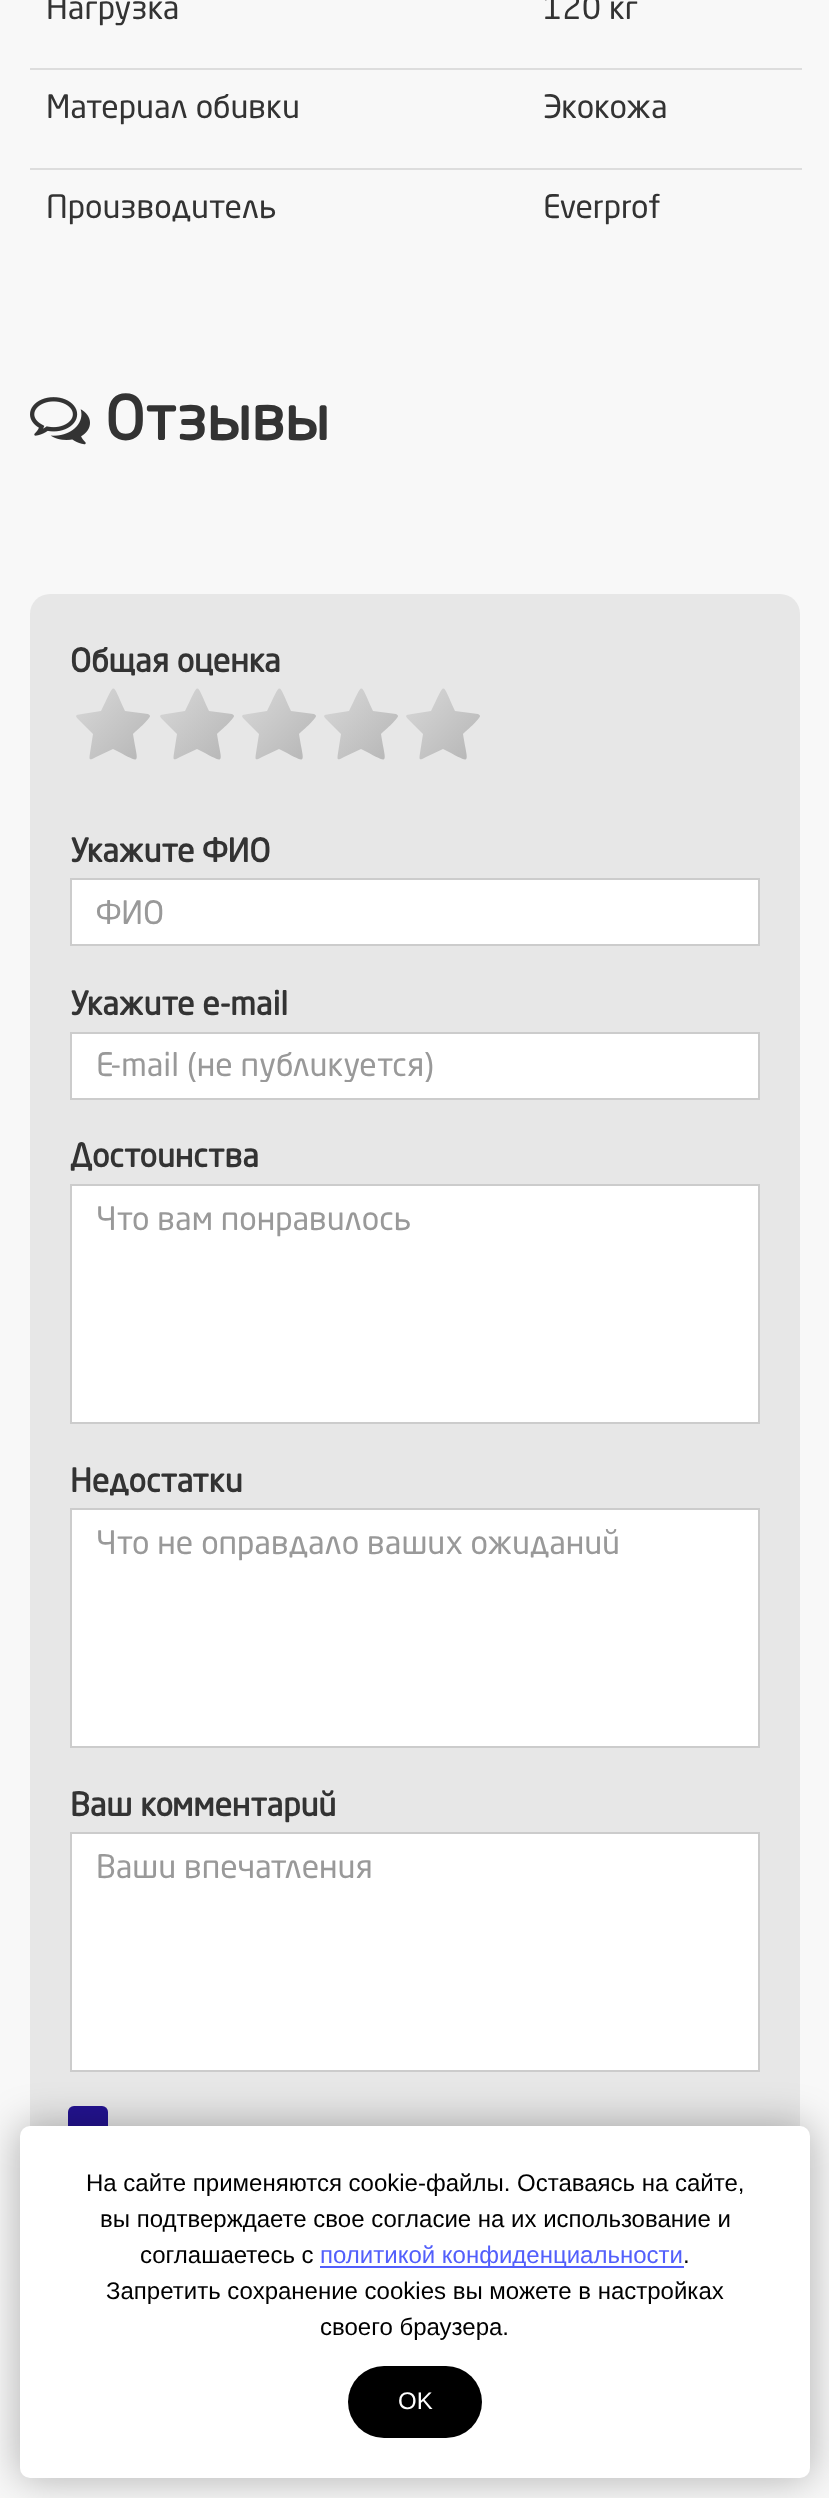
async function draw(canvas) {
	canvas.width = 829;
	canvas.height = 2498;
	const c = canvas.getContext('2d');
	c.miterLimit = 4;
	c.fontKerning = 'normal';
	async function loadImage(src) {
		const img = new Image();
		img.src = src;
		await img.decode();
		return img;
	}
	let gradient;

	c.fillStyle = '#f8f8f8';
	c.fillRect(0, 0, 829, 2498);
	c.font = '32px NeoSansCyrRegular';
	c.fillStyle = '#333';
	for (const [text, x, y] of [
		['Нагрузка', 46, 19],
		['120 кг', 543, 19],
		['Материал обивки', 46, 118],
	]) {
		c.fillText(text, x, y);
	}
	c.fillStyle = '#ddd';
	c.fillRect(30, 68, 772, 2);
	c.fillStyle = '#333';
	c.fillText('Экокожа', 543, 118);
	c.fillText('Производитель', 46, 218);
	c.fillStyle = '#ddd';
	c.fillRect(30, 168, 772, 2);
	c.fillStyle = '#333';
	c.fillText('Everprof', 543, 218);
	c.drawImage(await loadImage('img1.png'), 30, 397, 60, 48);
	c.font = 'bold 60px NeoSansCyrRegular';
	c.fillText('Отзывы', 105, 440);
	c.fillStyle = '#e7e7e7';
	c.beginPath();
	c.roundRect(30, 594, 770, 1806, 20);
	c.fill();
	c.font = 'bold 32px NeoSansCyrRegular';
	c.fillStyle = '#333';
	c.fillText('Общая оценка', 70, 672);
	gradient = c.createLinearGradient(75, 689, 153, 767);
	gradient.addColorStop(0, '#d9d9d9');
	gradient.addColorStop(1, '#b3b3b3');
	c.fillStyle = gradient;
	c.beginPath();
	c.moveTo(150, 716);
	c.bezierCurveTo(150, 719, 135, 732, 133, 734);
	c.bezierCurveTo(138, 766, 143, 764, 113, 749);
	c.lineTo(96, 757);
	c.bezierCurveTo(89, 761, 89, 760, 90, 753);
	c.lineTo(93, 734);
	c.lineTo(80, 721);
	c.bezierCurveTo(75, 716, 74, 715, 82, 714);
	c.lineTo(101, 711);
	c.bezierCurveTo(116, 681, 111, 681, 125, 711);
	c.lineTo(148, 714);
	c.bezierCurveTo(149, 715, 150, 715, 150, 716);
	c.closePath();
	c.fill();
	gradient = c.createLinearGradient(158, 689, 235, 767);
	gradient.addColorStop(0, '#d9d9d9');
	gradient.addColorStop(1, '#b3b3b3');
	c.fillStyle = gradient;
	c.beginPath();
	c.moveTo(234, 716);
	c.bezierCurveTo(234, 719, 219, 732, 217, 734);
	c.bezierCurveTo(222, 766, 227, 764, 197, 749);
	c.lineTo(180, 757);
	c.bezierCurveTo(173, 761, 173, 760, 174, 753);
	c.lineTo(177, 734);
	c.lineTo(164, 721);
	c.bezierCurveTo(159, 716, 158, 715, 166, 714);
	c.lineTo(185, 711);
	c.bezierCurveTo(200, 681, 195, 681, 209, 711);
	c.lineTo(232, 714);
	c.bezierCurveTo(233, 715, 234, 715, 234, 716);
	c.closePath();
	c.fill();
	gradient = c.createLinearGradient(240, 689, 317, 767);
	gradient.addColorStop(0, '#d9d9d9');
	gradient.addColorStop(1, '#b3b3b3');
	c.fillStyle = gradient;
	c.beginPath();
	c.moveTo(316, 716);
	c.bezierCurveTo(316, 719, 301, 732, 299, 734);
	c.bezierCurveTo(304, 766, 309, 764, 279, 749);
	c.lineTo(262, 757);
	c.bezierCurveTo(255, 761, 255, 760, 256, 753);
	c.lineTo(259, 734);
	c.lineTo(246, 721);
	c.bezierCurveTo(241, 716, 240, 715, 248, 714);
	c.lineTo(267, 711);
	c.bezierCurveTo(282, 681, 277, 681, 291, 711);
	c.lineTo(314, 714);
	c.bezierCurveTo(315, 715, 316, 715, 316, 716);
	c.closePath();
	c.fill();
	gradient = c.createLinearGradient(322, 689, 399, 767);
	gradient.addColorStop(0, '#d9d9d9');
	gradient.addColorStop(1, '#b3b3b3');
	c.fillStyle = gradient;
	c.beginPath();
	c.moveTo(398, 716);
	c.bezierCurveTo(398, 719, 383, 732, 381, 734);
	c.bezierCurveTo(386, 766, 391, 764, 361, 749);
	c.lineTo(344, 757);
	c.bezierCurveTo(337, 761, 337, 760, 338, 753);
	c.lineTo(341, 734);
	c.lineTo(328, 721);
	c.bezierCurveTo(323, 716, 322, 715, 330, 714);
	c.lineTo(349, 711);
	c.bezierCurveTo(364, 681, 359, 681, 373, 711);
	c.lineTo(396, 714);
	c.bezierCurveTo(397, 715, 398, 715, 398, 716);
	c.closePath();
	c.fill();
	gradient = c.createLinearGradient(404, 689, 481, 767);
	gradient.addColorStop(0, '#d9d9d9');
	gradient.addColorStop(1, '#b3b3b3');
	c.fillStyle = gradient;
	c.beginPath();
	c.moveTo(480, 716);
	c.bezierCurveTo(480, 719, 465, 732, 463, 734);
	c.bezierCurveTo(468, 766, 473, 764, 443, 749);
	c.lineTo(426, 757);
	c.bezierCurveTo(419, 761, 419, 760, 420, 753);
	c.lineTo(423, 734);
	c.lineTo(410, 721);
	c.bezierCurveTo(405, 716, 404, 715, 412, 714);
	c.lineTo(431, 711);
	c.bezierCurveTo(446, 681, 441, 681, 455, 711);
	c.lineTo(478, 714);
	c.bezierCurveTo(479, 715, 480, 715, 480, 716);
	c.closePath();
	c.fill();
	c.fillStyle = '#333';
	c.fillText('Укажите ФИО', 70, 862);
	c.fillStyle = '#fff';
	c.beginPath();
	c.rect(71, 879, 688, 66);
	c.fill();
	c.strokeStyle = '#ccc';
	c.lineWidth = 2;
	c.stroke();
	c.font = '32px NeoSansCyrRegular';
	c.fillStyle = '#999';
	c.fillText('ФИО', 96, 924);
	c.font = 'bold 32px NeoSansCyrRegular';
	c.fillStyle = '#333';
	c.fillText('Укажите e-mail', 70, 1015);
	c.fillStyle = '#fff';
	c.beginPath();
	c.rect(71, 1033, 688, 66);
	c.fill();
	c.stroke();
	c.save();
	c.beginPath();
	c.rect(96, 1048, 638, 34);
	c.clip();
	c.font = '32px NeoSansCyrRegular';
	c.fillStyle = '#999';
	c.fillText('E-mail (не публикуется)', 96, 1076);
	c.restore();
	c.fillStyle = '#333';
	c.fillText('Достоинства', 70, 1167);
	c.fillStyle = '#fff';
	c.beginPath();
	c.rect(71, 1185, 688, 238);
	c.fill();
	c.stroke();
	c.font = '32px NeoSansCyrRegular';
	c.fillStyle = '#999';
	c.fillText('Что вам понравилось', 96, 1230);
	c.font = 'bold 32px NeoSansCyrRegular';
	c.fillStyle = '#333';
	c.fillText('Недостатки', 70, 1492);
	c.fillStyle = '#fff';
	c.beginPath();
	c.rect(71, 1509, 688, 238);
	c.fill();
	c.stroke();
	c.font = '32px NeoSansCyrRegular';
	c.fillStyle = '#999';
	c.fillText('Что не оправдало ваших ожиданий', 96, 1554);
	c.font = 'bold 32px NeoSansCyrRegular';
	c.fillStyle = '#333';
	c.fillText('Ваш комментарий', 70, 1816);
	c.fillStyle = '#fff';
	c.beginPath();
	c.rect(71, 1833, 688, 238);
	c.fill();
	c.stroke();
	c.font = '32px NeoSansCyrRegular';
	c.fillStyle = '#999';
	c.fillText('Ваши впечатления', 96, 1878);
	c.fillStyle = '#231390';
	c.beginPath();
	c.roundRect(68, 2106, 40, 40, 6);
	c.fill();
	c.fillStyle = '#0000004d';
	c.filter = 'blur(20px)';
	c.beginPath();
	c.roundRect(20, 2126, 790, 352, 10);
	c.fill();
	c.filter = 'none';
	c.fillStyle = '#fff';
	c.beginPath();
	c.roundRect(20, 2126, 790, 352, 10);
	c.fill();
	c.font = '24px Liberation Sans';
	c.fillStyle = '#000';
	for (const [text, x, y] of [
		['На сайте применяются cookie-файлы. Оставаясь на сайте,', 86, 2191],
		['вы подтверждаете свое согласие на их использование и', 100, 2227],
		['соглашаетесь с', 140, 2263],
	]) {
		c.fillText(text, x, y);
	}
	c.fillStyle = '#525ffb';
	c.fillRect(320, 2266, 364, 2);
	c.fillText('политикой конфиденциальности', 320, 2263);
	c.fillStyle = '#000';
	for (const [text, x, y] of [
		['.', 683, 2263],
		['Запретить сохранение cookies вы можете в настройках', 106, 2299],
		['своего браузера.', 320, 2335],
	]) {
		c.fillText(text, x, y);
	}
	c.beginPath();
	c.roundRect(348, 2366, 134, 72, 36);
	c.fill();
	c.fillStyle = '#fff';
	c.fillText('OK', 398, 2409);
}

draw(document.querySelector('canvas'));
